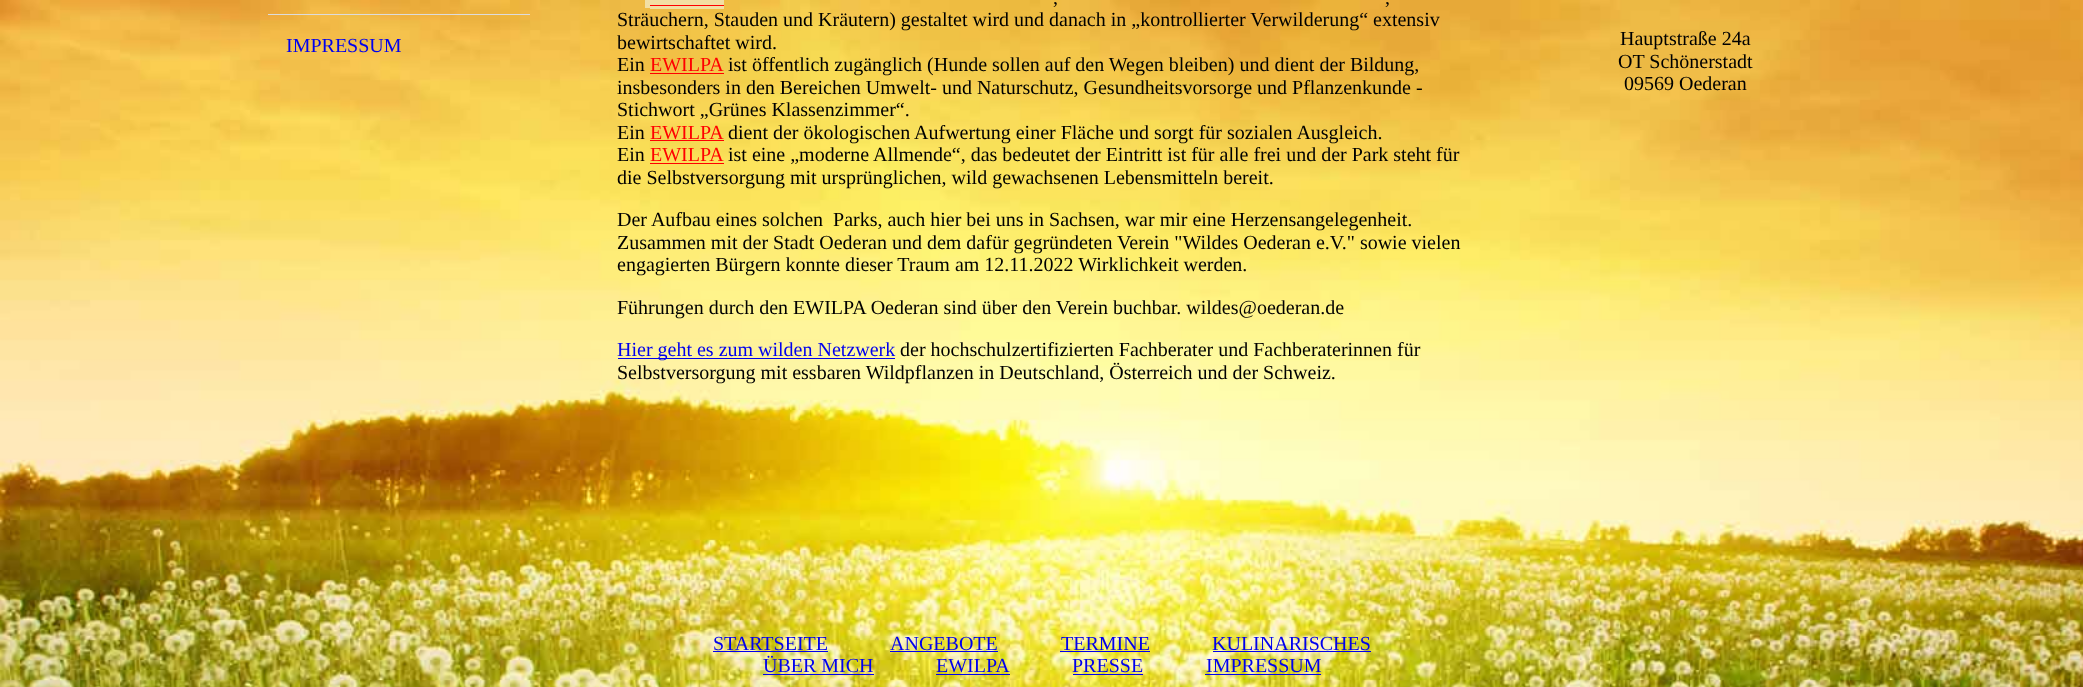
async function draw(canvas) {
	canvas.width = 2083;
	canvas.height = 687;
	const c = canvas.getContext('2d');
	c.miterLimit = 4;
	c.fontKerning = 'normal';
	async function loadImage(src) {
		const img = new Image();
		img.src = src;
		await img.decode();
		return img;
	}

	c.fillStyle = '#fff';
	c.fillRect(0, 0, 2083, 687);
	c.drawImage(await loadImage('img1.png'), 0, 0, 2083, 687);
	c.fillStyle = '#dcdcdc';
	c.fillRect(268, 14, 262, 1);
	c.font = '20px Liberation Serif';
	c.fillStyle = '#00e';
	c.fillText('IMPRESSUM', 286, 52);
	for (const [x, y, w, h, color] of [
		[645, 0, 5, 8, '#f2dfa4'],
		[650, 0, 74, 9, '#f3e5b4d9'],
		[650, 5, 74, 1, '#f00'],
	]) {
		c.fillStyle = color;
		c.fillRect(x, y, w, h);
	}
	c.fillStyle = '#000';
	for (const [text, x, y] of [
		[',', 1053, 4],
		[',', 1385, 4],
		['Sträuchern, Stauden und Kräutern) gestaltet wird und danach in „kontrollierter Verwilderung“ extensiv', 617, 26],
		['bewirtschaftet wird.', 617, 49],
		['Ein', 617, 71],
	]) {
		c.fillText(text, x, y);
	}
	c.fillStyle = '#f00';
	c.fillText('EWILPA', 650, 71);
	c.fillRect(650, 73, 74, 1);
	c.fillStyle = '#000';
	for (const [text, x, y] of [
		['ist öffentlich zugänglich (Hunde sollen auf den Wegen bleiben) und dient der Bildung,', 728, 71],
		['insbesonders in den Bereichen Umwelt- und Naturschutz, Gesundheitsvorsorge und Pflanzenkunde -', 617, 94],
		['Stichwort „Grünes Klassenzimmer“.', 617, 116],
		['Ein', 617, 139],
	]) {
		c.fillText(text, x, y);
	}
	c.fillStyle = '#f00';
	c.fillText('EWILPA', 650, 139);
	c.fillRect(650, 140, 74, 1);
	c.fillStyle = '#000';
	c.fillText('dient der ökologischen Aufwertung einer Fläche und sorgt für sozialen Ausgleich.', 728, 139);
	c.fillText('Ein', 617, 161);
	c.fillStyle = '#f00';
	c.fillText('EWILPA', 650, 161);
	c.fillRect(650, 163, 74, 1);
	c.fillStyle = '#000';
	for (const [text, x, y] of [
		['ist eine „moderne Allmende“, das bedeutet der Eintritt ist für alle frei und der Park steht für', 728, 161],
		['die Selbstversorgung mit ursprünglichen, wild gewachsenen Lebensmitteln bereit.', 617, 184],
		['Der Aufbau eines solchen  Parks, auch hier bei uns in Sachsen, war mir eine Herzensangelegenheit.', 617, 226],
		['Zusammen mit der Stadt Oederan und dem dafür gegründeten Verein "Wildes Oederan e.V." sowie vielen', 617, 249],
		['engagierten Bürgern konnte dieser Traum am 12.11.2022 Wirklichkeit werden.', 617, 271],
		['Führungen durch den EWILPA Oederan sind über den Verein buchbar. wildes@oederan.de', 617, 314],
	]) {
		c.fillText(text, x, y);
	}
	c.fillStyle = '#00e';
	c.fillRect(618, 358, 277, 1);
	c.fillText('Hier geht es zum wilden Netzwerk', 617, 356);
	c.fillStyle = '#000';
	for (const [text, x, y] of [
		['der hochschulzertifizierten Fachberater und Fachberaterinnen für', 900, 356],
		['Selbstversorgung mit essbaren Wildpflanzen in Deutschland, Österreich und der Schweiz.', 617, 379],
		['Hauptstraße 24a', 1620, 45],
		['OT Schönerstadt', 1618, 68],
		['09569 Oederan', 1624, 90],
	]) {
		c.fillText(text, x, y);
	}
	c.fillStyle = '#00e';
	c.fillText('STARTSEITE', 713, 650);
	c.fillRect(713, 651, 115, 1);
	c.fillText('ANGEBOTE', 890, 650);
	c.fillRect(890, 651, 108, 1);
	c.fillText('TERMINE', 1061, 650);
	c.fillRect(1060, 651, 90, 1);
	c.fillText('KULINARISCHES', 1212, 650);
	c.fillRect(1213, 651, 158, 1);
	c.fillText('ÜBER MICH', 763, 672);
	c.fillRect(763, 674, 111, 1);
	c.fillText('EWILPA', 936, 672);
	c.fillRect(936, 674, 74, 1);
	c.fillText('PRESSE', 1072, 672);
	c.fillRect(1073, 674, 70, 1);
	c.fillText('IMPRESSUM', 1206, 672);
	c.fillRect(1205, 674, 116, 1);
}

draw(document.querySelector('canvas'));
